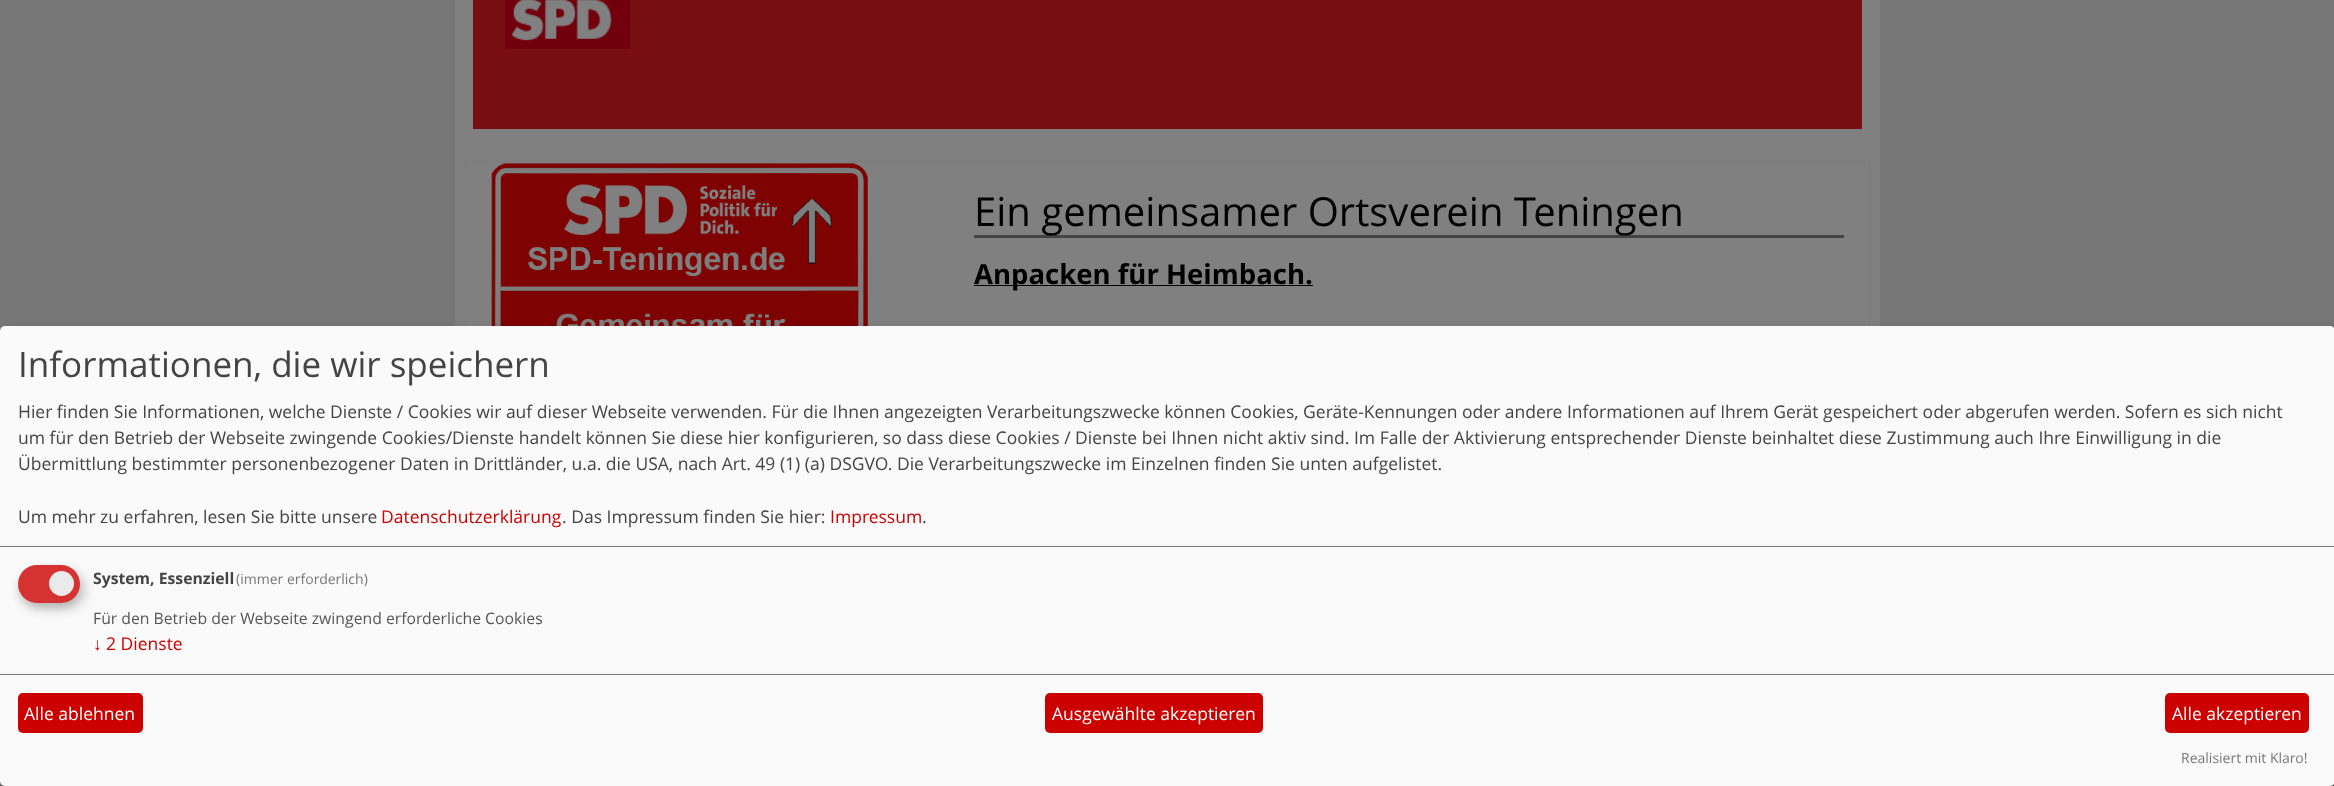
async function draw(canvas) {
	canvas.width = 2334;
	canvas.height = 786;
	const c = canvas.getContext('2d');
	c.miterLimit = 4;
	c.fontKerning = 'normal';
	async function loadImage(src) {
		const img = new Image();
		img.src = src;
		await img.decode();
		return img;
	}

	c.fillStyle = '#777';
	c.fillRect(0, 0, 2334, 786);
	c.fillStyle = '#808080';
	c.fillRect(455, 0, 1425, 326);
	c.fillStyle = '#770e12';
	c.fillRect(473, 0, 1389, 129);
	c.drawImage(await loadImage('img1.png'), 505, 0, 125, 49);
	c.strokeStyle = '#7c7d7d';
	c.strokeRect(465.5, 161.5, 1404, 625);
	c.drawImage(await loadImage('img2.png'), 491, 163, 377, 163);
	c.fillStyle = '#444';
	c.fillRect(974, 235, 870, 3);
	c.font = '40px Open Sans';
	c.fillStyle = '#000';
	c.fillText('Ein gemeinsamer Ortsverein Teningen', 974, 226);
	c.fillRect(974, 285, 339, 1);
	c.font = 'bold 27.5px Open Sans';
	c.fillText('Anpacken für Heimbach.', 974, 284);
	c.fillStyle = '#00000030';
	c.filter = 'blur(6px)';
	c.beginPath();
	c.roundRect(6, 333, 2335, 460, 5);
	c.fill();
	c.filter = 'none';
	c.fillStyle = '#00000033';
	c.filter = 'blur(4px)';
	c.beginPath();
	c.roundRect(0, 331, 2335, 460, 5);
	c.fill();
	c.filter = 'none';
	c.fillStyle = '#fafafa';
	c.beginPath();
	c.roundRect(0, 326, 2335, 460, 5);
	c.fill();
	c.fillStyle = '#777';
	c.fillRect(0, 546, 2334, 1);
	c.font = '35px Open Sans';
	c.fillStyle = '#444';
	c.fillText('Informationen, die wir speichern', 18, 377);
	c.font = '17.5px Open Sans';
	for (const [text, x, y] of [
		['Hier finden Sie Informationen, welche Dienste / Cookies wir auf dieser Webseite verwenden. Für die Ihnen angezeigten Verarbeitungszwecke können Cookies, Geräte-Kennungen oder andere Informationen auf Ihrem Gerät gespeichert oder abgerufen werden. Sofern es sich nicht', 18, 418],
		['um für den Betrieb der Webseite zwingende Cookies/Dienste handelt können Sie diese hier konfigurieren, so dass diese Cookies / Dienste bei Ihnen nicht aktiv sind. Im Falle der Aktivierung entsprechender Dienste beinhaltet diese Zustimmung auch Ihre Einwilligung in die', 18, 444],
		['Übermittlung bestimmter personenbezogener Daten in Drittländer, u.a. die USA, nach Art. 49 (1) (a) DSGVO. Die Verarbeitungszwecke im Einzelnen finden Sie unten aufgelistet.', 18, 470],
		['Um mehr zu erfahren, lesen Sie bitte unsere', 18, 523],
	]) {
		c.fillText(text, x, y);
	}
	c.fillStyle = '#cd0000';
	c.fillText('Datenschutzerklärung', 381, 523);
	c.fillStyle = '#444';
	c.fillText('. Das Impressum finden Sie hier:', 562, 523);
	c.fillStyle = '#cd0000';
	c.fillText('Impressum', 830, 523);
	c.fillStyle = '#444';
	c.fillText('.', 922, 523);
	c.fillStyle = '#00000026';
	c.filter = 'blur(6px)';
	c.beginPath();
	c.roundRect(24, 571, 62, 38, 19);
	c.fill();
	c.filter = 'none';
	c.fillStyle = '#32323233';
	c.filter = 'blur(4px)';
	c.beginPath();
	c.roundRect(18, 570, 62, 38, 19);
	c.fill();
	c.filter = 'none';
	c.fillStyle = '#d63232';
	c.beginPath();
	c.roundRect(18, 565, 62, 38, 19);
	c.fill();
	c.fillStyle = '#eaeaea';
	c.beginPath();
	c.arc(61.5, 583.5, 12.5, 0, 2 * Math.PI);
	c.fill();
	c.font = 'bold 15.75px Open Sans';
	c.fillStyle = '#444';
	c.fillText('System, Essenziell', 93, 584);
	c.font = '14px Open Sans';
	c.fillStyle = '#777';
	c.fillText('(immer erforderlich)', 236, 584);
	c.font = '15.75px Open Sans';
	c.fillStyle = '#555';
	c.fillText('Für den Betrieb der Webseite zwingend erforderliche Cookies', 93, 624);
	c.font = '17.5px Liberation Sans';
	c.fillStyle = '#cd0000';
	c.fillText('↓', 93, 650);
	c.font = '17.5px Open Sans';
	c.fillText('2 Dienste', 106, 650);
	c.fillStyle = '#777';
	c.fillRect(0, 674, 2334, 1);
	c.fillStyle = '#cd0000';
	c.beginPath();
	c.roundRect(18, 693, 125, 40, 5);
	c.fill();
	c.fillStyle = '#fff';
	c.fillText('Alle ablehnen', 24, 720);
	c.fillStyle = '#cd0000';
	c.beginPath();
	c.roundRect(1045, 693, 218, 40, 5);
	c.fill();
	c.fillStyle = '#fff';
	c.fillText('Ausgewählte akzeptieren', 1052, 720);
	c.fillStyle = '#cd0000';
	c.beginPath();
	c.roundRect(2165, 693, 144, 40, 5);
	c.fill();
	c.fillStyle = '#fff';
	c.fillText('Alle akzeptieren', 2172, 720);
	c.font = '14px Open Sans';
	c.fillStyle = '#777';
	c.fillText('Realisiert mit Klaro!', 2181, 763);
}

draw(document.querySelector('canvas'));
